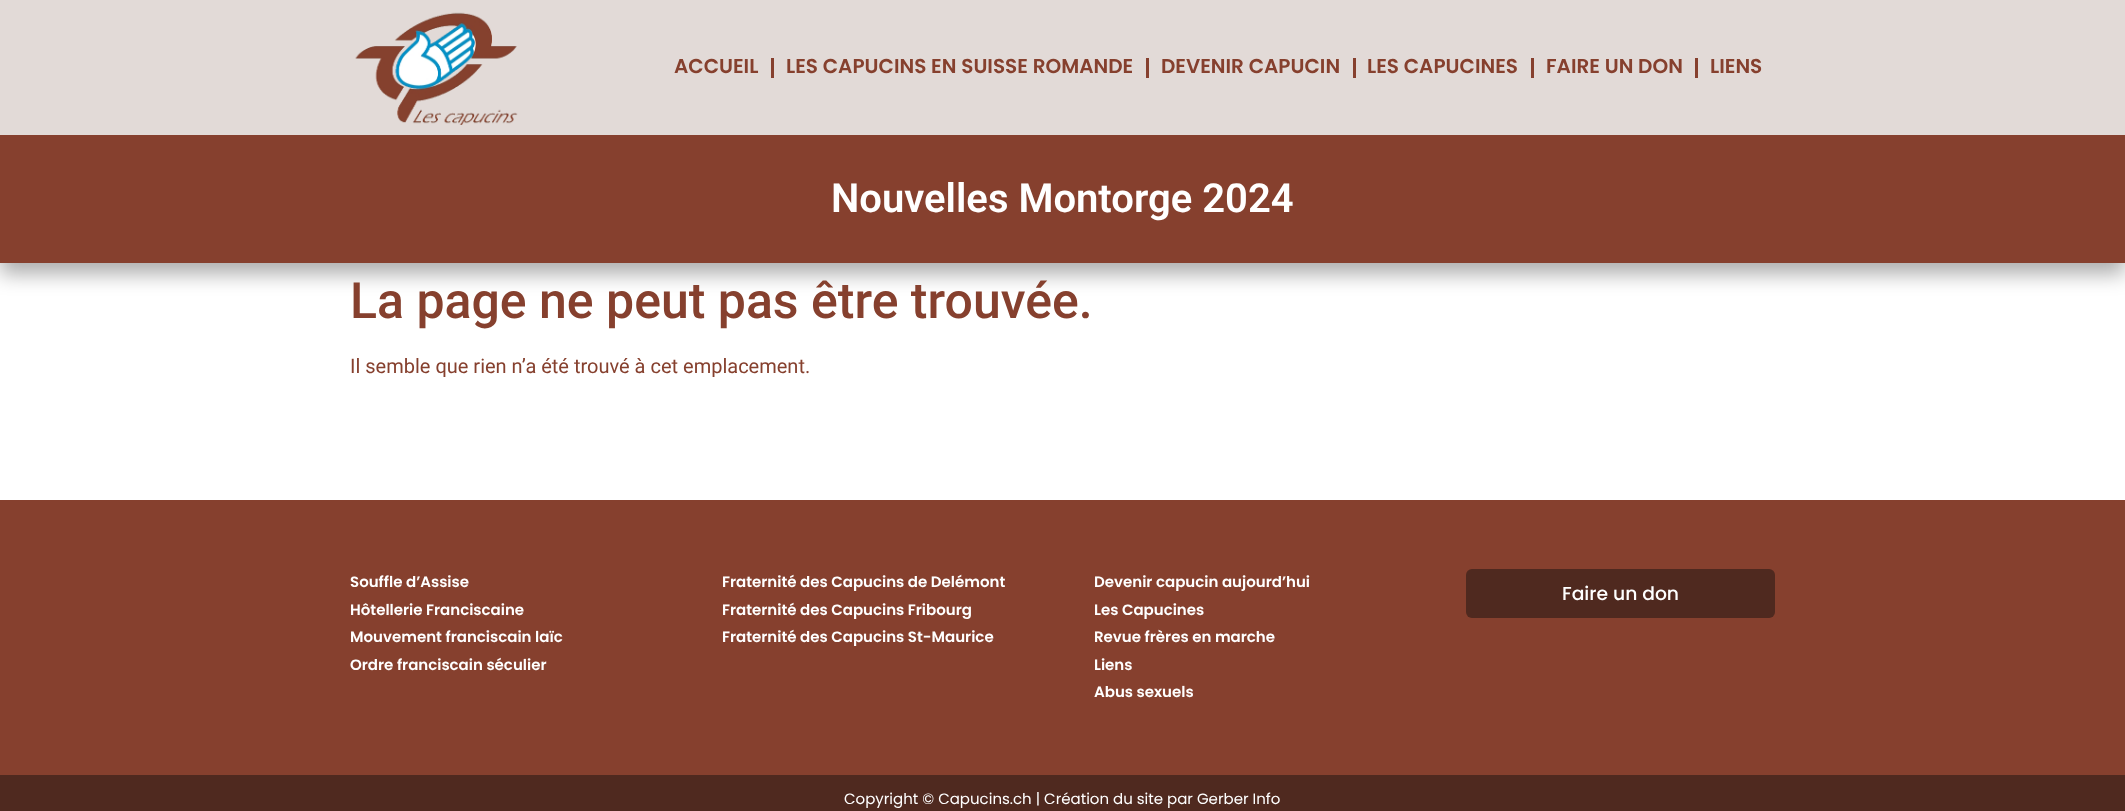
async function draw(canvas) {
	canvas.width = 2125;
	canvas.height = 811;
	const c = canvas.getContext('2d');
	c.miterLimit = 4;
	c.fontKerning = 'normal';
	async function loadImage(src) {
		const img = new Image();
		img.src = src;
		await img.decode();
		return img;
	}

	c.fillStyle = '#fff';
	c.fillRect(0, 0, 2125, 811);
	c.fillStyle = '#00000052';
	c.filter = 'blur(10px)';
	c.beginPath();
	c.rect(0, 146, 2125, 128);
	c.fill();
	c.filter = 'none';
	c.fillStyle = '#e2dad7';
	c.fillRect(0, 0, 2125, 135);
	c.drawImage(await loadImage('img1.png'), 355, 12, 163, 113);
	c.font = '600 20px Poppins';
	c.fillStyle = '#86402e';
	c.fillText('ACCUEIL', 674, 73);
	c.fillRect(771, 58, 3, 20);
	c.fillText('LES CAPUCINS EN SUISSE ROMANDE', 786, 73);
	c.fillRect(1146, 58, 3, 20);
	c.fillText('DEVENIR CAPUCIN', 1161, 73);
	c.fillRect(1353, 58, 3, 20);
	c.fillText('LES CAPUCINES', 1367, 73);
	c.fillRect(1531, 58, 3, 20);
	c.fillText('FAIRE UN DON', 1546, 73);
	c.fillRect(1695, 58, 3, 20);
	c.fillText('LIENS', 1710, 73);
	c.fillRect(0, 135, 2125, 128);
	c.font = '600 40px Roboto';
	c.fillStyle = '#fff';
	c.fillText('Nouvelles Montorge 2024', 831, 212);
	c.font = '500 50px Roboto';
	c.fillStyle = '#86402e';
	c.fillText('La page ne peut pas être trouvée.', 350, 318);
	c.font = '20px Roboto';
	c.fillText('Il semble que rien n’a été trouvé à cet emplacement.', 350, 373);
	c.fillRect(0, 500, 2125, 275);
	c.font = '600 15px Poppins';
	c.fillStyle = '#fff';
	for (const [text, x, y] of [
		['Souffle d’Assise', 350, 587],
		['Hôtellerie Franciscaine', 350, 615],
		['Mouvement franciscain laïc', 350, 642],
		['Ordre franciscain séculier', 350, 670],
		['Fraternité des Capucins de Delémont', 722, 587],
		['Fraternité des Capucins Fribourg', 722, 615],
		['Fraternité des Capucins St-Maurice', 722, 642],
		['Devenir capucin aujourd’hui', 1094, 587],
		['Les Capucines', 1094, 615],
		['Revue frères en marche', 1094, 642],
		['Liens', 1094, 670],
		['Abus sexuels', 1094, 697],
	]) {
		c.fillText(text, x, y);
	}
	c.fillStyle = '#4f291f';
	c.beginPath();
	c.roundRect(1466, 569, 309, 49, 6);
	c.fill();
	c.font = '500 18.75px Poppins';
	c.fillStyle = '#fff';
	c.fillText('Faire un don', 1562, 600);
	c.fillStyle = '#4f291f';
	c.fillRect(0, 775, 2125, 36);
	c.font = '15px Poppins';
	c.fillStyle = '#fff';
	c.fillText('Copyright © Capucins.ch | Création du site par Gerber Info', 844, 804);
}

draw(document.querySelector('canvas'));
